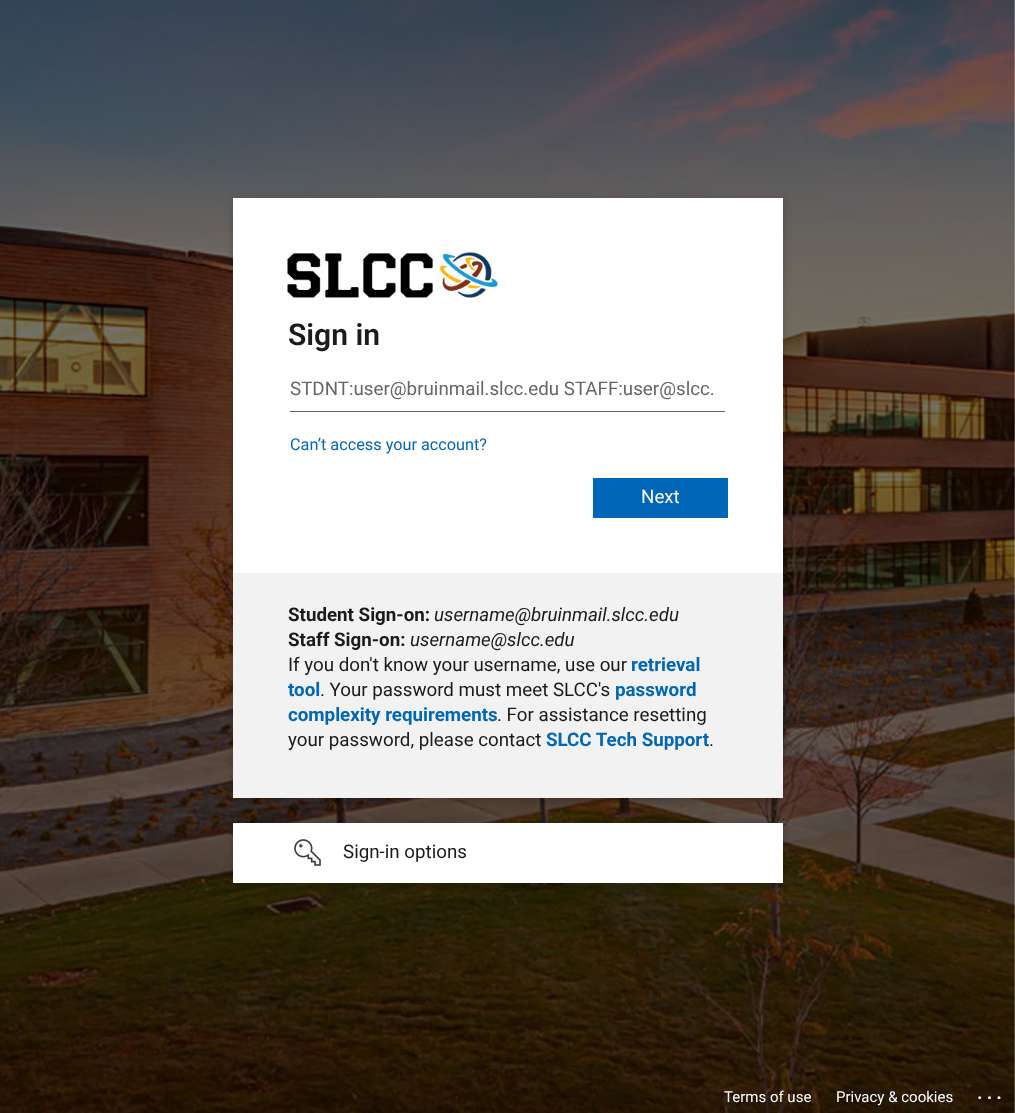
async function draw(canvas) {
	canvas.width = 1015;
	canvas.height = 1113;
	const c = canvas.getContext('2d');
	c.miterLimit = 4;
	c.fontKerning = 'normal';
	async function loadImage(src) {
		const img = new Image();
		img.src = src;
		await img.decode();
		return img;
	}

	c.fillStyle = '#fff';
	c.fillRect(0, 0, 1015, 1113);
	c.drawImage(await loadImage('img1.png'), 0, 0, 1015, 1113);
	c.fillStyle = '#00000033';
	c.filter = 'blur(4px)';
	c.beginPath();
	c.rect(233, 200, 550, 600);
	c.fill();
	c.filter = 'none';
	c.fillStyle = '#fff';
	c.fillRect(233, 198, 550, 375);
	c.drawImage(await loadImage('img2.png'), 287, 252, 211, 46);
	c.font = '600 30px Roboto';
	c.fillStyle = '#1b1b1b';
	c.fillText('Sign in', 288, 345);
	c.fillStyle = '#666';
	c.fillRect(290, 411, 435, 1);
	c.font = '18.75px Roboto';
	c.fillText('STDNT:user@bruinmail.slcc.edu STAFF:user@slcc.', 290, 395);
	c.font = '16.25px Roboto';
	c.fillStyle = '#0067b8';
	c.fillText('Can’t access your account?', 290, 450);
	c.fillRect(593, 478, 135, 40);
	c.font = '18.75px Roboto';
	c.fillStyle = '#fff';
	c.fillText('Next', 641, 503);
	c.fillStyle = '#f2f2f2';
	c.fillRect(233, 573, 550, 225);
	c.font = 'bold 18.75px Roboto';
	c.fillStyle = '#1b1b1b';
	c.fillText('Student Sign-on:', 288, 621);
	c.font = 'italic 18.75px Roboto';
	c.fillText('username@bruinmail.slcc.edu', 434, 621);
	c.font = 'bold 18.75px Roboto';
	c.fillText('Staff Sign-on:', 288, 646);
	c.font = 'italic 18.75px Roboto';
	c.fillText('username@slcc.edu', 410, 646);
	c.font = '18.75px Roboto';
	c.fillText('If you don\'t know your username, use our', 288, 671);
	c.font = 'bold 18.75px Roboto';
	c.fillStyle = '#0067b8';
	c.fillText('retrieval', 631, 671);
	c.fillText('tool', 288, 696);
	c.font = '18.75px Roboto';
	c.fillStyle = '#1b1b1b';
	c.fillText('. Your password must meet SLCC\'s', 320, 696);
	c.font = 'bold 18.75px Roboto';
	c.fillStyle = '#0067b8';
	c.fillText('password', 615, 696);
	c.fillText('complexity requirements', 288, 721);
	c.font = '18.75px Roboto';
	c.fillStyle = '#1b1b1b';
	c.fillText('. For assistance resetting', 497, 721);
	c.fillText('your password, please contact', 288, 746);
	c.font = 'bold 18.75px Roboto';
	c.fillStyle = '#0067b8';
	c.fillText('SLCC Tech Support', 546, 746);
	c.font = '18.75px Roboto';
	c.fillStyle = '#1b1b1b';
	c.fillText('.', 709, 746);
	c.fillStyle = '#00000033';
	c.filter = 'blur(4px)';
	c.beginPath();
	c.rect(233, 825, 550, 60);
	c.fill();
	c.filter = 'none';
	c.fillStyle = '#fff';
	c.fillRect(233, 823, 550, 60);
	c.drawImage(await loadImage('img3.png'), 294, 839, 27, 27);
	c.fillStyle = '#1b1b1b';
	c.fillText('Sign-in options', 343, 858);
	c.font = '15px Roboto';
	c.fillStyle = '#fff';
	c.fillText('Terms of use', 724, 1102);
	c.fillText('Privacy & cookies', 836, 1102);
	c.letterSpacing = '4px';
	c.font = '600 20px Roboto';
	c.fillText('...', 977, 1099);
}

draw(document.querySelector('canvas'));
